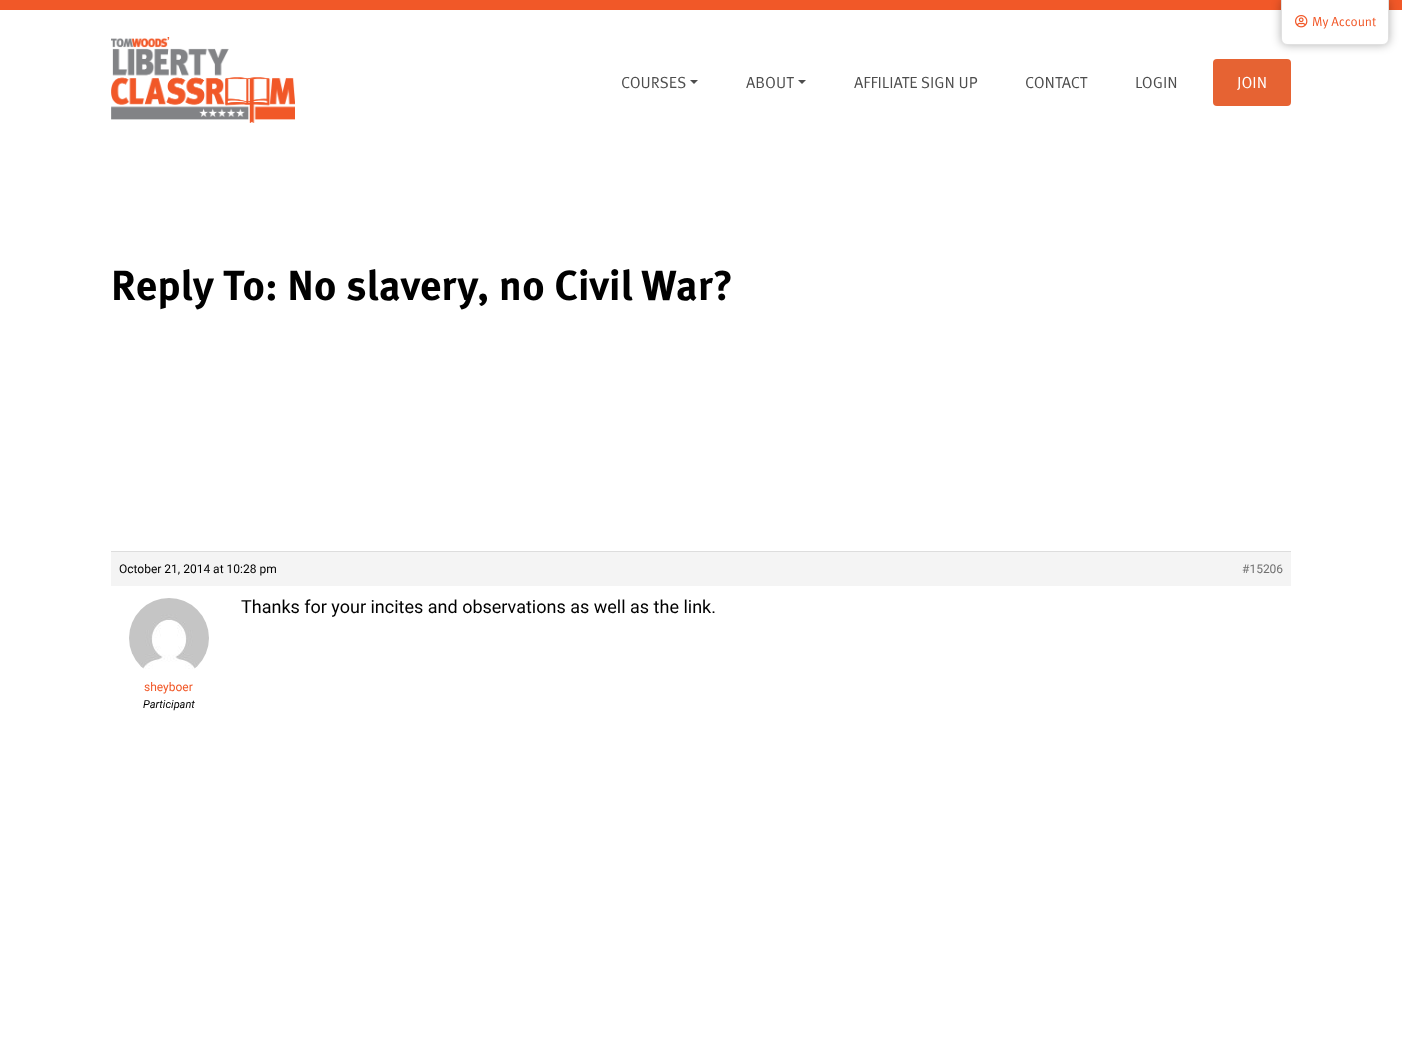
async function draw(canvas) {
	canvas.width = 1402;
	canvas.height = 1061;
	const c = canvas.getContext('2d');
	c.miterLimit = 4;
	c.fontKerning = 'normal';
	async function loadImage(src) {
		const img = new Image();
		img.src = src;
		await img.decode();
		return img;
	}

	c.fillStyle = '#fff';
	c.fillRect(0, 0, 1402, 1061);
	c.fillStyle = '#f15828';
	c.fillRect(0, 0, 1402, 10);
	c.drawImage(await loadImage('img1.png'), 111, 37, 184, 86);
	c.fillStyle = '#e66333';
	c.beginPath();
	c.roundRect(1213, 59, 78, 47, 4);
	c.fill();
	c.fillStyle = '#0000004d';
	c.filter = 'blur(5px)';
	c.beginPath();
	c.roundRect(1281, -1, 108, 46, 6);
	c.fill();
	c.filter = 'none';
	c.fillStyle = '#fff';
	c.beginPath();
	c.moveTo(1281.5, -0.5);
	c.lineTo(1388.5, -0.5);
	c.lineTo(1388.5, 39);
	c.bezierCurveTo(1388.5, 42, 1386, 44.5, 1383, 44.5);
	c.lineTo(1287, 44.5);
	c.bezierCurveTo(1284, 44.5, 1281.5, 42, 1281.5, 39);
	c.closePath();
	c.fill();
	c.strokeStyle = '#e0e0e0';
	c.stroke();
	c.drawImage(await loadImage('img2.png'), 1295, 15, 13, 13);
	c.font = '13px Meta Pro';
	c.fillStyle = '#f15828';
	c.fillText('My Account', 1312, 26);
	c.font = '16px Meta Pro';
	c.fillStyle = '#4d4d4d';
	c.fillText('COURSES', 621, 88);
	c.beginPath();
	c.moveTo(690, 80);
	c.lineTo(698, 80);
	c.lineTo(694, 84);
	c.closePath();
	c.fill();
	c.fillText('ABOUT', 746, 88);
	c.beginPath();
	c.moveTo(798, 80);
	c.lineTo(806, 80);
	c.lineTo(802, 84);
	c.closePath();
	c.fill();
	for (const [text, x, y] of [
		['AFFILIATE SIGN UP', 854, 88],
		['CONTACT', 1025, 88],
		['LOGIN', 1135, 88],
	]) {
		c.fillText(text, x, y);
	}
	c.fillStyle = '#fff';
	c.fillText('JOIN', 1237, 88);
	c.font = 'bold 42px Meta Pro';
	c.fillStyle = '#000';
	c.fillText('Reply To: No slavery, no Civil War?', 111, 300);
	c.fillStyle = '#f4f4f4';
	c.fillRect(111, 552, 1180, 34);
	c.fillStyle = '#ddd';
	c.fillRect(111, 551, 1180, 1);
	c.font = '12px Roboto';
	c.fillStyle = '#000';
	c.fillText('October 21, 2014 at 10:28 pm', 119, 573);
	c.fillStyle = '#707070';
	c.fillText('#15206', 1242, 573);
	c.font = '18px Roboto';
	c.fillStyle = '#000';
	c.fillText('Thanks for your incites and observations as well as the link.', 241, 613);
	c.drawImage(await loadImage('img3.png'), 129, 598, 80, 71);
	c.font = '12px Roboto';
	c.fillStyle = '#f15828';
	c.fillText('sheyboer', 144, 691);
	c.font = 'italic 11px Roboto';
	c.fillStyle = '#000';
	c.fillText('Participant', 143, 708);
}

draw(document.querySelector('canvas'));
